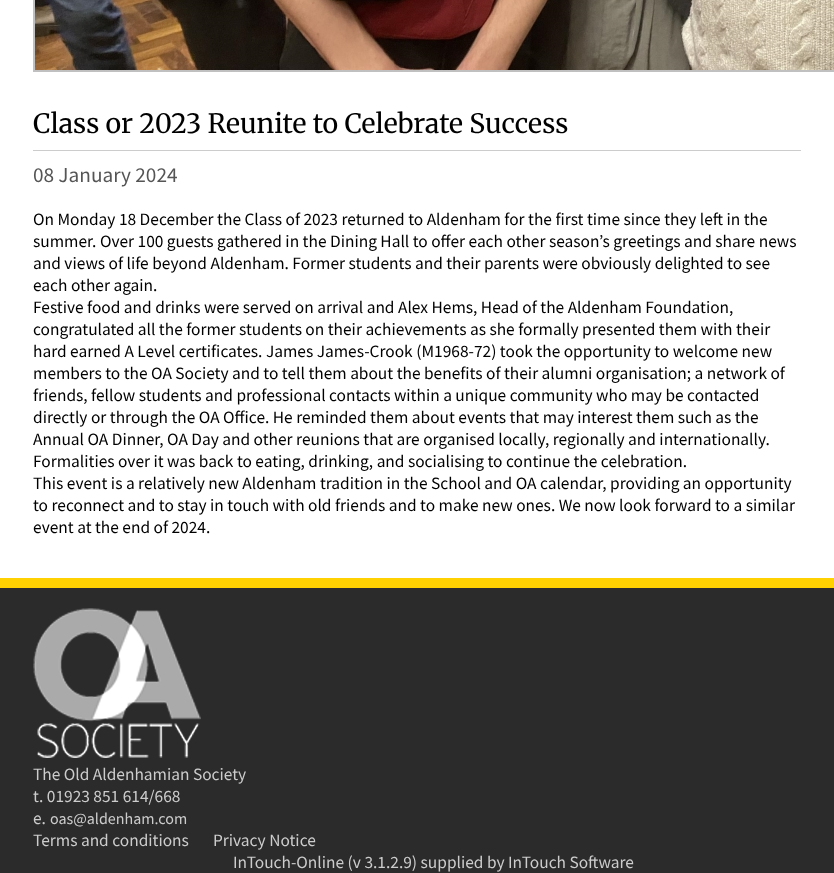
async function draw(canvas) {
	canvas.width = 834;
	canvas.height = 873;
	const c = canvas.getContext('2d');
	c.miterLimit = 4;
	c.fontKerning = 'normal';
	async function loadImage(src) {
		const img = new Image();
		img.src = src;
		await img.decode();
		return img;
	}

	c.fillStyle = '#2b2b2b';
	c.fillRect(0, 0, 834, 873);
	c.fillStyle = '#fff';
	c.fillRect(0, 0, 834, 578);
	c.strokeStyle = '#c0c0c0';
	c.lineWidth = 2;
	c.strokeRect(34, -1, 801, 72);
	c.drawImage(await loadImage('img1.png'), 35, 0, 799, 70);
	c.fillStyle = '#ccc';
	c.fillRect(33, 150, 768, 1);
	c.font = '300 26.7px Merriweather';
	c.fillStyle = '#000';
	c.fillText('Class or 2023 Reunite to Celebrate Success', 33, 133);
	c.font = '21.25px Source Sans Pro';
	c.fillStyle = '#555';
	c.fillText('08 January 2024', 33, 182);
	c.font = '17.35px Source Sans Pro';
	c.fillStyle = '#000';
	for (const [text, x, y] of [
		['On Monday 18 December the Class of 2023 returned to Aldenham for the first time since they left in the', 33, 225],
		['summer. Over 100 guests gathered in the Dining Hall to offer each other season’s greetings and share news', 33, 247],
		['and views of life beyond Aldenham. Former students and their parents were obviously delighted to see', 33, 269],
		['each other again.', 33, 291],
		['Festive food and drinks were served on arrival and Alex Hems, Head of the Aldenham Foundation,', 33, 313],
		['congratulated all the former students on their achievements as she formally presented them with their', 33, 335],
		['hard earned A Level certificates. James James-Crook (M1968-72) took the opportunity to welcome new', 33, 357],
		['members to the OA Society and to tell them about the benefits of their alumni organisation; a network of', 33, 379],
		['friends, fellow students and professional contacts within a unique community who may be contacted', 33, 401],
		['directly or through the OA Office. He reminded them about events that may interest them such as the', 33, 423],
		['Annual OA Dinner, OA Day and other reunions that are organised locally, regionally and internationally.', 33, 445],
		['Formalities over it was back to eating, drinking, and socialising to continue the celebration.', 33, 467],
		['This event is a relatively new Aldenham tradition in the School and OA calendar, providing an opportunity', 33, 489],
		['to reconnect and to stay in touch with old friends and to make new ones. We now look forward to a similar', 33, 511],
		['event at the end of 2024.', 33, 533],
	]) {
		c.fillText(text, x, y);
	}
	c.fillStyle = '#ffd101';
	c.fillRect(0, 578, 834, 10);
	c.drawImage(await loadImage('img2.png'), 33, 608, 168, 150);
	c.fillStyle = '#ccc';
	for (const [text, x, y] of [
		['The Old Aldenhamian Society', 33, 780],
		['t. 01923 851 614/668', 33, 802],
		['e.', 33, 824],
	]) {
		c.fillText(text, x, y);
	}
	c.font = '16px Source Sans Pro';
	c.fillText('oas@aldenham.com', 50, 824);
	c.font = '17.35px Source Sans Pro';
	for (const [text, x, y] of [
		['Terms and conditions', 33, 846],
		['Privacy Notice', 213, 846],
		['InTouch-Online (v 3.1.2.9) supplied by InTouch Software', 233, 868],
	]) {
		c.fillText(text, x, y);
	}
}

draw(document.querySelector('canvas'));
